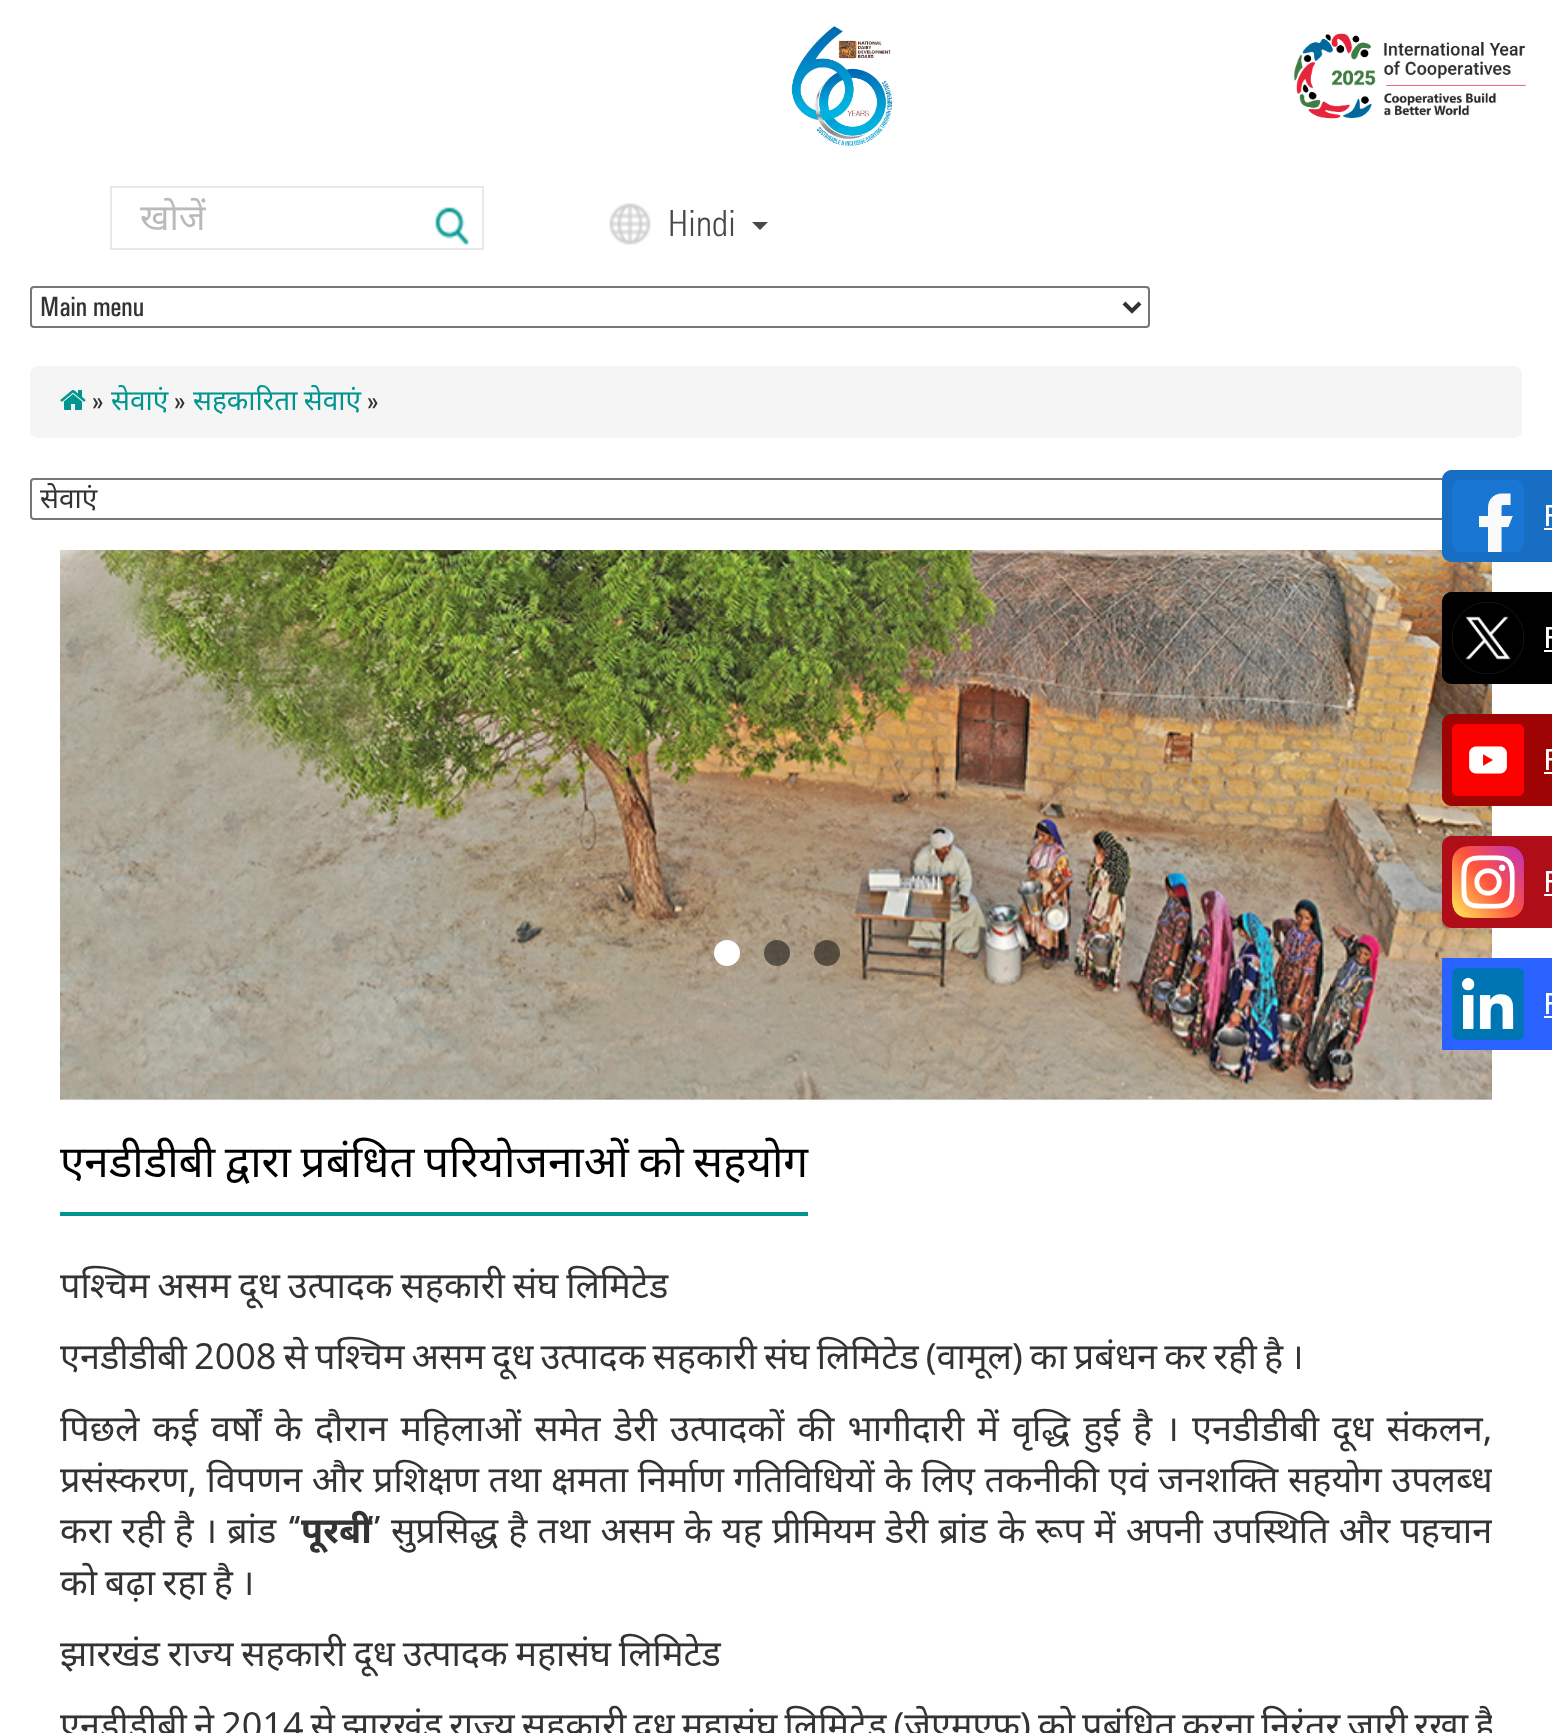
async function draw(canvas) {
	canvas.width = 1552;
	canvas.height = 1733;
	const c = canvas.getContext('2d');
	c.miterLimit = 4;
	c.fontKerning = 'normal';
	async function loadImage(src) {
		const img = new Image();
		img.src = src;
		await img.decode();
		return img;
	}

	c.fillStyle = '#fff';
	c.fillRect(0, 0, 1552, 1733);
	c.drawImage(await loadImage('img1.png'), 791, 26, 102, 120);
	c.drawImage(await loadImage('img2.png'), 1293, 33, 234, 86);
	c.strokeStyle = '#e8e8e8';
	c.lineWidth = 2;
	c.strokeRect(111, 187, 372, 62);
	c.save();
	c.beginPath();
	c.rect(140, 192, 288, 48);
	c.clip();
	c.font = '36px Noto Sans';
	c.fillStyle = '#bababa';
	c.fillText('खाेजें', 140, 230);
	c.restore();
	c.drawImage(await loadImage('img3.png'), 435, 207, 34, 38);
	c.drawImage(await loadImage('img4.png'), 609, 203, 42, 42);
	c.font = '300 36px "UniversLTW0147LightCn"';
	c.fillStyle = '#494949';
	c.fillText('Hindi', 668, 236);
	c.beginPath();
	c.moveTo(752, 222);
	c.lineTo(768, 222);
	c.lineTo(760, 230);
	c.closePath();
	c.fill();
	c.beginPath();
	c.roundRect(31, 287, 1118, 40, 3);
	c.strokeStyle = '#767676';
	c.stroke();
	c.beginPath();
	c.moveTo(1124, 303);
	c.lineTo(1132, 311);
	c.lineTo(1140, 303);
	c.strokeStyle = '#333';
	c.lineWidth = 4;
	c.stroke();
	c.font = '28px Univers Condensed';
	c.fillStyle = '#333';
	c.fillText('Main menu', 40, 316);
	c.fillStyle = '#f5f5f5';
	c.beginPath();
	c.roundRect(30, 366, 1492, 72, 8);
	c.fill();
	c.drawImage(await loadImage('img5.png'), 60, 390, 26, 20);
	c.fillStyle = '#333';
	c.fillText('»', 92, 410);
	c.font = '28px Noto Sans';
	c.fillStyle = '#00958f';
	c.fillText('सेवाएं', 111, 410);
	c.font = '28px Univers Condensed';
	c.fillStyle = '#333';
	c.fillText('»', 174, 410);
	c.wordSpacing = '-1px';
	c.font = '28px Noto Sans';
	c.fillStyle = '#00958f';
	c.fillText('सहकारिता सेवाएं', 193, 410);
	c.wordSpacing = '0px';
	c.font = '28px Univers Condensed';
	c.fillStyle = '#333';
	c.fillText('»', 367, 410);
	c.beginPath();
	c.roundRect(31, 479, 1490, 40, 3);
	c.strokeStyle = '#767676';
	c.lineWidth = 2;
	c.stroke();
	c.save();
	c.beginPath();
	c.rect(40, 480, 1448, 38);
	c.clip();
	c.font = '28px Noto Sans';
	c.fillText('सेवाएं', 40, 508);
	c.restore();
	c.drawImage(await loadImage('img6.png'), 60, 550, 1432, 550);
	c.fillStyle = '#fff';
	c.beginPath();
	c.arc(727, 953, 13, 0, 2 * Math.PI);
	c.fill();
	c.fillStyle = '#00000080';
	c.beginPath();
	c.arc(777, 953, 13, 0, 2 * Math.PI);
	c.fill();
	c.beginPath();
	c.arc(827, 953, 13, 0, 2 * Math.PI);
	c.fill();
	c.fillStyle = '#00958f';
	c.fillRect(60, 1212, 748, 4);
	c.wordSpacing = '-1.75px';
	c.font = '44px Noto Sans';
	c.fillStyle = '#000';
	c.fillText('एनडीडीबी द्वारा प्रबंधित परियोजनाओं को सहयोग', 60, 1177);
	c.wordSpacing = '-1.5px';
	c.font = '36px Noto Sans';
	c.fillStyle = '#333';
	c.fillText('पश्चिम असम दूध उत्‍पादक सहकारी संघ लिमिटेड', 60, 1298);
	c.wordSpacing = '-2.25px';
	c.fillText('एनडीडीबी 2008 से पश्चिम असम दूध उत्‍पादक सहकारी संघ लिमिटेड (वामूल) का प्रबंधन कर रही है ।', 60, 1369);
	c.wordSpacing = '3.75px';
	c.fillText('पिछले कई वर्षों के दौरान महिलाओं समेत डेरी उत्‍पादकों की भागीदारी में वृद्धि हुई है । एनडीडीबी दूध संकलन,', 60, 1441);
	c.save();
	c.beginPath();
	c.rect(60, 1260, 1432, 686);
	c.clip();
	c.wordSpacing = '0.2px';
	c.fillText('प्रसंस्करण, विपणन और प्रशिक्षण तथा क्षमता निर्माण गतिविधियों के लिए तकनीकी एवं जनशक्ति सहयोग उपलब्‍ध', 60, 1492);
	c.restore();
	c.wordSpacing = '0.5px';
	c.fillText('करा रही है । ब्रांड', 60, 1543);
	c.wordSpacing = '0px';
	c.font = 'bold 36px "UniversLTW0147LightCn"';
	c.fillText('“', 287, 1543);
	c.font = 'bold 36px Noto Sans';
	c.fillText('पूरबी', 301, 1543);
	c.font = 'bold 36px "UniversLTW0147LightCn"';
	c.fillText('’’', 366, 1543);
	c.save();
	c.beginPath();
	c.rect(60, 1260, 1432, 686);
	c.clip();
	c.wordSpacing = '0.75px';
	c.font = '36px Noto Sans';
	c.fillText('सुप्रसिद्ध है तथा असम के यह प्रीमियम डेरी ब्रांड के रूप में अपनी उपस्थिति और पहचान', 391, 1543);
	c.wordSpacing = '-1.5px';
	c.fillText('को बढ़ा रहा है ।', 60, 1595);
	c.restore();
	c.wordSpacing = '-1.5px';
	c.font = '36px Noto Sans';
	c.fillText('झारखंड राज्‍य सहकारी दूध उत्‍पादक महासंघ लिमिटेड', 60, 1666);
	c.save();
	c.beginPath();
	c.rect(60, 1260, 1432, 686);
	c.clip();
	c.wordSpacing = '-2.25px';
	c.fillText('एनडीडीबी ने 2014 से झारखंड राज्‍य सहकारी दूध महासंघ लिमिटेड (जेएमएफ) को प्रबंधित करना निरंतर जारी रखा है', 60, 1738);
	c.restore();
	c.drawImage(await loadImage('img7.png'), 1442, 470, 110, 580);
}

draw(document.querySelector('canvas'));
